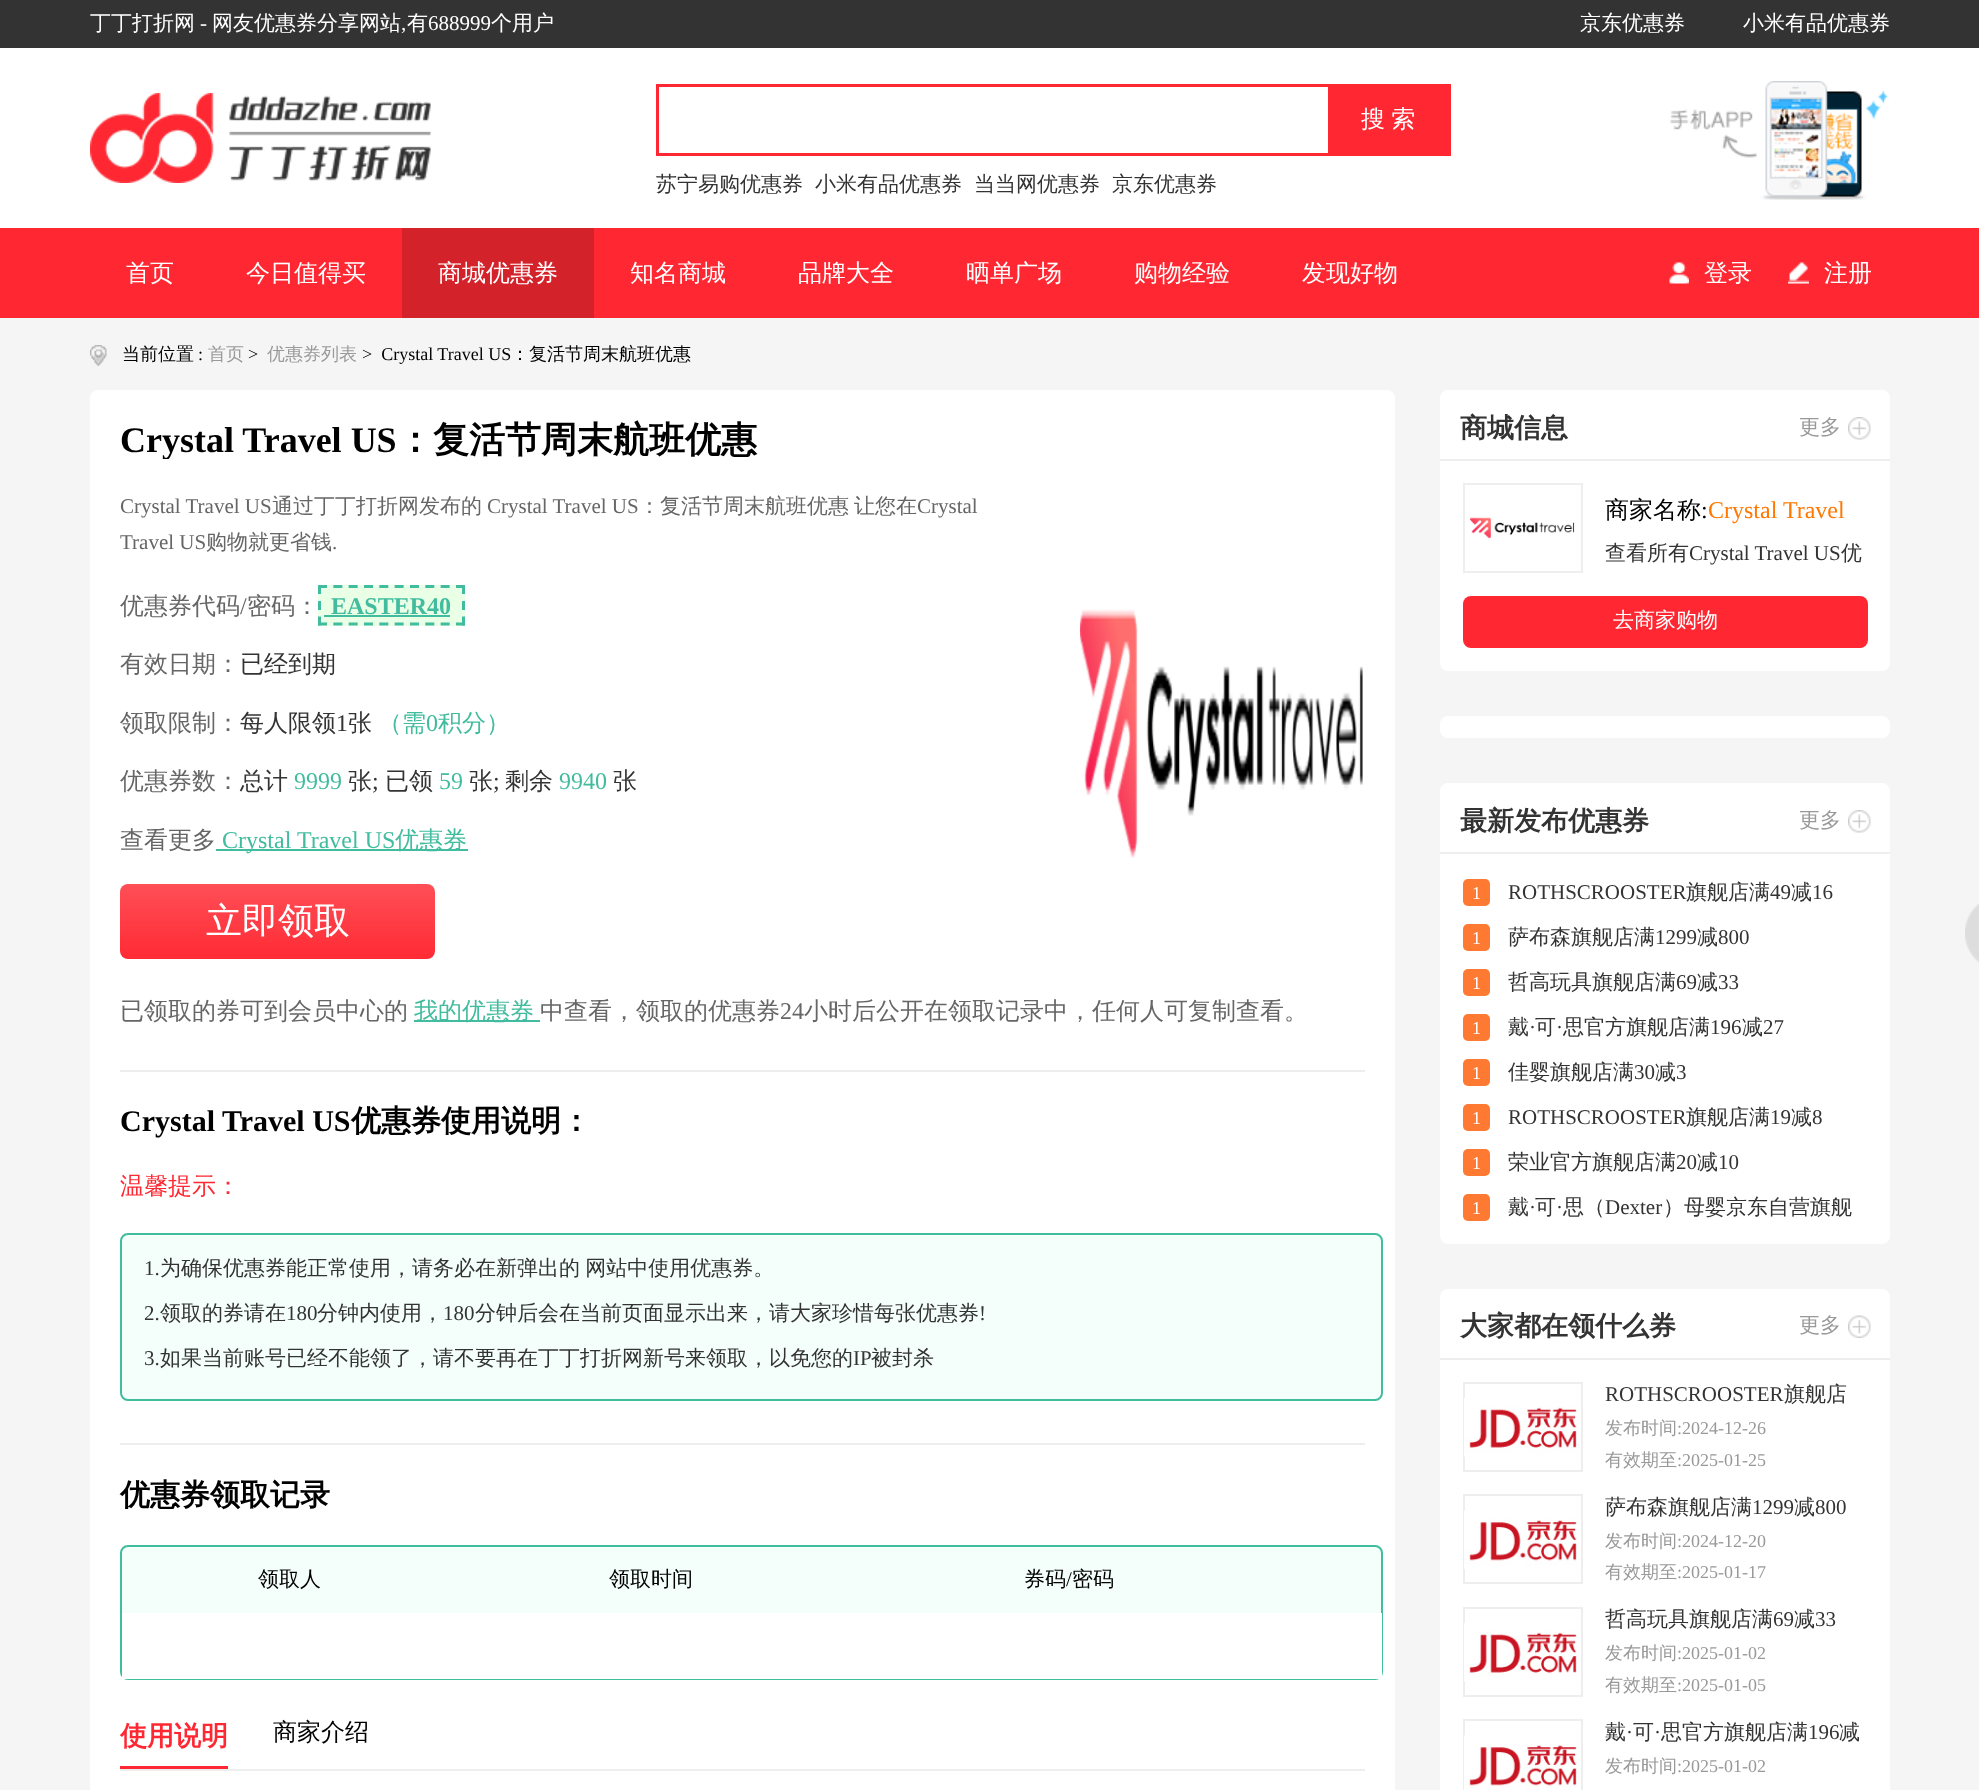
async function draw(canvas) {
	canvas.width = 1979;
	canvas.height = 1790;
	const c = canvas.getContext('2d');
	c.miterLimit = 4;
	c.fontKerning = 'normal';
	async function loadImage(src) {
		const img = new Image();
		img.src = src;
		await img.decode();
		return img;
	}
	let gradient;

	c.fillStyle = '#f5f5f5';
	c.fillRect(0, 0, 1979, 1790);
	c.fillStyle = '#333';
	c.fillRect(0, 0, 1979, 48);
	c.font = '500 21px WenQuanYi Zen Hei';
	c.fillStyle = '#fff';
	c.fillText('丁丁打折网', 90, 30);
	c.font = '21px Liberation Serif';
	c.fillText('-', 200, 30);
	c.font = '500 21px WenQuanYi Zen Hei';
	c.fillText('网友优惠券分享网站', 212, 30);
	c.fillText('有', 407, 30);
	c.font = '21px Liberation Serif';
	c.fillText('688999', 428, 30);
	c.font = '500 21px WenQuanYi Zen Hei';
	c.fillText('个用户', 491, 30);
	c.font = '21px Liberation Serif';
	c.fillText(',', 401, 30);
	c.font = '500 21px WenQuanYi Zen Hei';
	c.fillText('京东优惠券', 1580, 30);
	c.fillText('小米有品优惠券', 1743, 30);
	c.fillRect(0, 48, 1979, 180);
	c.drawImage(await loadImage('img1.png'), 90, 93, 341, 90);
	c.strokeStyle = '#ff2832';
	c.lineWidth = 3;
	c.strokeRect(657.5, 85.5, 792, 69);
	c.fillStyle = '#ff2832';
	c.fillRect(1328, 87, 120, 66);
	c.wordSpacing = '-1px';
	c.font = '500 24px WenQuanYi Zen Hei';
	c.fillStyle = '#fff';
	c.fillText('搜 索', 1361, 127);
	c.wordSpacing = '0px';
	c.font = '500 21px WenQuanYi Zen Hei';
	c.fillStyle = '#333';
	for (const [text, x, y] of [
		['苏宁易购优惠券', 656, 191],
		['小米有品优惠券', 815, 191],
		['当当网优惠券', 974, 191],
		['京东优惠券', 1112, 191],
	]) {
		c.fillText(text, x, y);
	}
	c.drawImage(await loadImage('img2.png'), 1669, 81, 220, 119);
	c.fillStyle = '#ff2832';
	c.fillRect(0, 228, 1979, 90);
	c.font = '500 24px WenQuanYi Zen Hei';
	c.fillStyle = '#fff';
	c.fillText('首页', 126, 281);
	c.fillText('今日值得买', 246, 281);
	c.fillStyle = '#d4222a';
	c.fillRect(402, 228, 192, 90);
	c.fillStyle = '#fff';
	for (const [text, x, y] of [
		['商城优惠券', 438, 281],
		['知名商城', 630, 281],
		['品牌大全', 798, 281],
		['晒单广场', 966, 281],
		['购物经验', 1134, 281],
		['发现好物', 1302, 281],
	]) {
		c.fillText(text, x, y);
	}
	c.drawImage(await loadImage('img3.png'), 1669, 262, 20, 22);
	c.fillText('登录', 1704, 281);
	c.drawImage(await loadImage('img4.png'), 1788, 262, 21, 22);
	c.fillText('注册', 1824, 281);
	c.drawImage(await loadImage('img5.png'), 90, 345, 17, 21);
	c.font = '500 18px WenQuanYi Zen Hei';
	c.fillStyle = '#000';
	c.fillText('当前位置', 122, 360);
	c.font = '18px Liberation Serif';
	c.fillText(':', 198, 360);
	c.font = '500 18px WenQuanYi Zen Hei';
	c.fillStyle = '#999';
	c.fillText('首页', 208, 360);
	c.font = '18px Liberation Serif';
	c.fillStyle = '#000';
	c.fillText('>', 248, 360);
	c.font = '500 18px WenQuanYi Zen Hei';
	c.fillStyle = '#999';
	c.fillText('优惠券列表', 267, 360);
	c.font = '18px Liberation Serif';
	c.fillStyle = '#000';
	c.fillText('>  Crystal Travel US', 362, 360);
	c.font = '500 18px WenQuanYi Zen Hei';
	c.fillText('：复活节周末航班优惠', 511, 360);
	c.fillStyle = '#fff';
	c.beginPath();
	c.roundRect(90, 390, 1305, 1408, 8);
	c.fill();
	c.save();
	c.beginPath();
	c.rect(120, 390, 870, 69);
	c.clip();
	c.font = 'bold 36px Liberation Serif';
	c.fillStyle = '#000';
	c.fillText('Crystal Travel US', 120, 452);
	c.restore();
	c.font = 'bold 36px WenQuanYi Zen Hei';
	c.fillStyle = '#000';
	c.fillText('：复活节周末航班优惠', 397, 452);
	c.font = '21px Liberation Serif';
	c.fillStyle = '#666';
	c.fillText('Crystal Travel US', 120, 513);
	c.font = '500 21px WenQuanYi Zen Hei';
	c.fillText('通过丁丁打折网发布的', 272, 513);
	c.font = '21px Liberation Serif';
	c.fillText('Crystal Travel US', 487, 513);
	c.font = '500 21px WenQuanYi Zen Hei';
	c.fillText('：复活节周末航班优惠', 639, 513);
	c.fillText('让您在', 854, 513);
	c.font = '21px Liberation Serif';
	c.fillText('Crystal', 917, 513);
	c.fillText('Travel US', 120, 549);
	c.font = '500 21px WenQuanYi Zen Hei';
	c.fillText('购物就更省钱', 206, 549);
	c.font = '21px Liberation Serif';
	c.fillText('.', 332, 549);
	c.font = '500 24px WenQuanYi Zen Hei';
	c.fillText('优惠券代码', 120, 614);
	c.font = '24px Liberation Serif';
	c.fillText('/', 240, 614);
	c.font = '500 24px WenQuanYi Zen Hei';
	c.fillText('密码：', 247, 614);
	c.fillStyle = '#e9ffe6';
	c.fillRect(318, 585, 147, 41);
	c.font = 'bold 24px Liberation Serif';
	c.fillStyle = '#42bc9e';
	c.fillText('EASTER40', 331, 614);
	c.beginPath();
	c.moveTo(318, 586.5);
	c.lineTo(465, 586.5);
	c.strokeStyle = '#42bc9e';
	c.setLineDash([9, 6.33]);
	c.stroke();
	c.beginPath();
	c.moveTo(463.5, 585);
	c.lineTo(463.5, 594);
	c.moveTo(463.5, 601);
	c.lineTo(463.5, 610);
	c.moveTo(463.5, 616.5);
	c.lineTo(463.5, 625.5);
	c.setLineDash([]);
	c.stroke();
	c.beginPath();
	c.moveTo(318, 624);
	c.lineTo(465, 624);
	c.setLineDash([9, 6.33]);
	c.stroke();
	c.beginPath();
	c.moveTo(319.5, 585);
	c.lineTo(319.5, 594);
	c.moveTo(319.5, 601);
	c.lineTo(319.5, 610);
	c.moveTo(319.5, 616.5);
	c.lineTo(319.5, 625.5);
	c.setLineDash([]);
	c.stroke();
	c.fillRect(324, 615, 126, 2);
	c.font = '500 24px WenQuanYi Zen Hei';
	c.fillStyle = '#666';
	c.fillText('有效日期：', 120, 672);
	c.fillStyle = '#333';
	c.fillText('已经到期', 240, 672);
	c.fillStyle = '#666';
	c.fillText('领取限制：', 120, 731);
	c.fillStyle = '#333';
	c.fillText('每人限领', 240, 731);
	c.font = '24px Liberation Serif';
	c.fillText('1', 336, 731);
	c.font = '500 24px WenQuanYi Zen Hei';
	c.fillText('张', 348, 731);
	c.fillStyle = '#42bc9e';
	c.fillText('（需', 378, 731);
	c.font = '24px Liberation Serif';
	c.fillText('0', 426, 731);
	c.font = '500 24px WenQuanYi Zen Hei';
	c.fillText('积分）', 438, 731);
	c.fillStyle = '#666';
	c.fillText('优惠券数：', 120, 789);
	c.fillStyle = '#333';
	c.fillText('总计', 240, 789);
	c.font = '24px Liberation Serif';
	c.fillStyle = '#42bc9e';
	c.fillText('9999', 294, 789);
	c.font = '500 24px WenQuanYi Zen Hei';
	c.fillStyle = '#333';
	c.fillText('张', 348, 789);
	c.font = '24px Liberation Serif';
	c.fillText(';', 372, 789);
	c.font = '500 24px WenQuanYi Zen Hei';
	c.fillText('已领', 385, 789);
	c.font = '24px Liberation Serif';
	c.fillStyle = '#42bc9e';
	c.fillText('59', 439, 789);
	c.font = '500 24px WenQuanYi Zen Hei';
	c.fillStyle = '#333';
	c.fillText('张', 469, 789);
	c.font = '24px Liberation Serif';
	c.fillText(';', 493, 789);
	c.font = '500 24px WenQuanYi Zen Hei';
	c.fillText('剩余', 505, 789);
	c.font = '24px Liberation Serif';
	c.fillStyle = '#42bc9e';
	c.fillText('9940', 559, 789);
	c.font = '500 24px WenQuanYi Zen Hei';
	c.fillStyle = '#333';
	c.fillText('张', 613, 789);
	c.fillStyle = '#666';
	c.fillText('查看更多', 120, 848);
	c.fillStyle = '#42bc9e';
	c.fillRect(216, 849, 252, 2);
	c.font = '24px Liberation Serif';
	c.fillText('Crystal Travel US', 222, 848);
	c.font = '500 24px WenQuanYi Zen Hei';
	c.fillText('优惠券', 395, 848);
	gradient = c.createLinearGradient(278, 884, 278, 959);
	gradient.addColorStop(0, '#ff4f57');
	gradient.addColorStop(1, '#ff2a34');
	c.fillStyle = gradient;
	c.beginPath();
	c.roundRect(120, 884, 315, 75, 8);
	c.fill();
	c.font = '500 36px WenQuanYi Zen Hei';
	c.fillStyle = '#fff';
	c.fillText('立即领取', 206, 933);
	c.drawImage(await loadImage('img6.png'), 1080, 609, 283, 249);
	c.font = '500 24px WenQuanYi Zen Hei';
	c.fillStyle = '#666';
	c.fillText('已领取的券可到会员中心的', 120, 1019);
	c.fillStyle = '#42bc9e';
	c.fillRect(414, 1020, 126, 2);
	c.fillText('我的优惠券', 414, 1019);
	c.fillStyle = '#666';
	c.fillText('中查看，领取的优惠券', 540, 1019);
	c.font = '24px Liberation Serif';
	c.fillText('24', 780, 1019);
	c.font = '500 24px WenQuanYi Zen Hei';
	c.fillText('小时后公开在领取记录中，任何人可复制查看。', 804, 1019);
	c.fillStyle = '#eee';
	c.fillRect(120, 1070, 1245, 2);
	c.font = 'bold 30px Liberation Serif';
	c.fillStyle = '#000';
	c.fillText('Crystal Travel US', 120, 1131);
	c.font = 'bold 30px WenQuanYi Zen Hei';
	c.fillText('优惠券使用说明：', 351, 1131);
	c.font = '500 24px WenQuanYi Zen Hei';
	c.fillStyle = '#ff2832';
	c.fillText('温馨提示：', 120, 1194);
	c.fillStyle = '#f4fffc';
	c.beginPath();
	c.roundRect(121, 1234, 1261, 166, 7);
	c.fill();
	c.lineWidth = 2;
	c.stroke();
	c.font = '21px Liberation Serif';
	c.fillStyle = '#333';
	c.fillText('1.', 144, 1275);
	c.wordSpacing = '-1px';
	c.font = '500 21px WenQuanYi Zen Hei';
	c.fillText('为确保优惠券能正常使用，请务必在新弹出的 网站中使用优惠券。', 160, 1275);
	c.wordSpacing = '0px';
	c.font = '21px Liberation Serif';
	c.fillText('2.', 144, 1320);
	c.font = '500 21px WenQuanYi Zen Hei';
	c.fillText('领取的券请在', 160, 1320);
	c.font = '21px Liberation Serif';
	c.fillText('180', 286, 1320);
	c.font = '500 21px WenQuanYi Zen Hei';
	c.fillText('分钟内使用，', 317, 1320);
	c.font = '21px Liberation Serif';
	c.fillText('180', 443, 1320);
	c.font = '500 21px WenQuanYi Zen Hei';
	c.fillText('分钟后会在当前页面显示出来，请大家珍惜每张优惠券', 475, 1320);
	c.font = '21px Liberation Serif';
	c.fillText('!', 979, 1320);
	c.fillText('3.', 144, 1365);
	c.font = '500 21px WenQuanYi Zen Hei';
	c.fillText('如果当前账号已经不能领了，请不要再在丁丁打折网新号来领取，以免您的', 160, 1365);
	c.font = '21px Liberation Serif';
	c.fillText('IP', 853, 1365);
	c.font = '500 21px WenQuanYi Zen Hei';
	c.fillText('被封杀', 871, 1365);
	c.fillStyle = '#eee';
	c.fillRect(120, 1443, 1245, 2);
	c.font = 'bold 30px WenQuanYi Zen Hei';
	c.fillStyle = '#000';
	c.fillText('优惠券领取记录', 120, 1505);
	c.fillStyle = '#f4fffc';
	c.beginPath();
	c.roundRect(121, 1546, 1261, 133, 7);
	c.fill();
	c.stroke();
	c.font = '500 21px WenQuanYi Zen Hei';
	c.fillStyle = '#000';
	for (const [text, x, y] of [
		['领取人', 258, 1586],
		['领取时间', 609, 1586],
		['券码', 1024, 1586],
	]) {
		c.fillText(text, x, y);
	}
	c.font = '21px Liberation Serif';
	c.fillText('/', 1066, 1586);
	c.font = '500 21px WenQuanYi Zen Hei';
	c.fillText('密码', 1072, 1586);
	for (const [x, y, w, h, color] of [
		[122, 1613, 1260, 66, '#fff'],
		[120, 1769, 1245, 2, '#eee'],
		[120, 1766, 108, 3, '#ff2832'],
	]) {
		c.fillStyle = color;
		c.fillRect(x, y, w, h);
	}
	c.font = 'bold 27px WenQuanYi Zen Hei';
	c.fillText('使用说明', 120, 1745);
	c.font = '500 24px WenQuanYi Zen Hei';
	c.fillStyle = '#000';
	c.fillText('商家介绍', 273, 1740);
	c.fillStyle = '#fff';
	c.beginPath();
	c.roundRect(1440, 390, 450, 281, 8);
	c.fill();
	c.fillStyle = '#eee';
	c.fillRect(1440, 459, 450, 2);
	c.font = 'bold 27px WenQuanYi Zen Hei';
	c.fillStyle = '#333';
	c.fillText('商城信息', 1460, 437);
	c.font = '500 21px WenQuanYi Zen Hei';
	c.fillStyle = '#999';
	c.fillText('更多', 1799, 434);
	c.drawImage(await loadImage('img7.png'), 1848, 417, 23, 23);
	c.strokeStyle = '#eee';
	c.strokeRect(1464, 484, 118, 88);
	c.drawImage(await loadImage('img8.png'), 1470, 517, 105, 22);
	c.font = '500 24px WenQuanYi Zen Hei';
	c.fillStyle = '#000';
	c.fillText('商家名称', 1605, 518);
	c.font = '24px Liberation Serif';
	c.fillText(':', 1701, 518);
	c.fillStyle = '#ff7800';
	c.fillText('Crystal Travel', 1708, 518);
	c.font = '500 21px WenQuanYi Zen Hei';
	c.fillStyle = '#333';
	c.fillText('查看所有', 1605, 560);
	c.font = '21px Liberation Serif';
	c.fillText('Crystal Travel US', 1689, 560);
	c.font = '500 21px WenQuanYi Zen Hei';
	c.fillText('优', 1841, 560);
	c.fillStyle = '#ff2832';
	c.beginPath();
	c.roundRect(1463, 596, 405, 52, 8);
	c.fill();
	c.fillStyle = '#fff';
	c.fillText('去商家购物', 1613, 627);
	c.beginPath();
	c.roundRect(1440, 716, 450, 22, 8);
	c.fill();
	c.beginPath();
	c.roundRect(1440, 783, 450, 461, 8);
	c.fill();
	c.fillStyle = '#eee';
	c.fillRect(1440, 852, 450, 2);
	c.font = 'bold 27px WenQuanYi Zen Hei';
	c.fillStyle = '#333';
	c.fillText('最新发布优惠券', 1460, 830);
	c.font = '500 21px WenQuanYi Zen Hei';
	c.fillStyle = '#999';
	c.fillText('更多', 1799, 827);
	c.drawImage(await loadImage('img7.png'), 1848, 810, 23, 23);
	c.fillStyle = '#fe7931';
	c.beginPath();
	c.roundRect(1463, 879, 27, 27, 5);
	c.fill();
	c.font = '18px Liberation Serif';
	c.fillStyle = '#fff';
	c.fillText('1', 1472, 899);
	c.font = '21px Liberation Serif';
	c.fillStyle = '#333';
	c.fillText('ROTHSCROOSTER', 1508, 899);
	c.font = '500 21px WenQuanYi Zen Hei';
	c.fillText('旗舰店满', 1686, 899);
	c.font = '21px Liberation Serif';
	c.fillText('49', 1770, 899);
	c.font = '500 21px WenQuanYi Zen Hei';
	c.fillText('减', 1791, 899);
	c.font = '21px Liberation Serif';
	c.fillText('16', 1812, 899);
	c.fillStyle = '#fe7931';
	c.beginPath();
	c.roundRect(1463, 924, 27, 27, 5);
	c.fill();
	c.font = '18px Liberation Serif';
	c.fillStyle = '#fff';
	c.fillText('1', 1472, 944);
	c.font = '500 21px WenQuanYi Zen Hei';
	c.fillStyle = '#333';
	c.fillText('萨布森旗舰店满', 1508, 944);
	c.font = '21px Liberation Serif';
	c.fillText('1299', 1655, 944);
	c.font = '500 21px WenQuanYi Zen Hei';
	c.fillText('减', 1697, 944);
	c.font = '21px Liberation Serif';
	c.fillText('800', 1718, 944);
	c.fillStyle = '#fe7931';
	c.beginPath();
	c.roundRect(1463, 969, 27, 27, 5);
	c.fill();
	c.font = '18px Liberation Serif';
	c.fillStyle = '#fff';
	c.fillText('1', 1472, 989);
	c.font = '500 21px WenQuanYi Zen Hei';
	c.fillStyle = '#333';
	c.fillText('哲高玩具旗舰店满', 1508, 989);
	c.font = '21px Liberation Serif';
	c.fillText('69', 1676, 989);
	c.font = '500 21px WenQuanYi Zen Hei';
	c.fillText('减', 1697, 989);
	c.font = '21px Liberation Serif';
	c.fillText('33', 1718, 989);
	c.fillStyle = '#fe7931';
	c.beginPath();
	c.roundRect(1463, 1014, 27, 27, 5);
	c.fill();
	c.font = '18px Liberation Serif';
	c.fillStyle = '#fff';
	c.fillText('1', 1472, 1034);
	c.font = '500 21px WenQuanYi Zen Hei';
	c.fillStyle = '#333';
	c.fillText('戴', 1508, 1034);
	c.font = '21px Liberation Serif';
	c.fillText('·', 1529, 1034);
	c.font = '500 21px WenQuanYi Zen Hei';
	c.fillText('可', 1535, 1034);
	c.font = '21px Liberation Serif';
	c.fillText('·', 1556, 1034);
	c.font = '500 21px WenQuanYi Zen Hei';
	c.fillText('思官方旗舰店满', 1563, 1034);
	c.font = '21px Liberation Serif';
	c.fillText('196', 1710, 1034);
	c.font = '500 21px WenQuanYi Zen Hei';
	c.fillText('减', 1742, 1034);
	c.font = '21px Liberation Serif';
	c.fillText('27', 1763, 1034);
	c.fillStyle = '#fe7931';
	c.beginPath();
	c.roundRect(1463, 1059, 27, 27, 5);
	c.fill();
	c.font = '18px Liberation Serif';
	c.fillStyle = '#fff';
	c.fillText('1', 1472, 1079);
	c.font = '500 21px WenQuanYi Zen Hei';
	c.fillStyle = '#333';
	c.fillText('佳婴旗舰店满', 1508, 1079);
	c.font = '21px Liberation Serif';
	c.fillText('30', 1634, 1079);
	c.font = '500 21px WenQuanYi Zen Hei';
	c.fillText('减', 1655, 1079);
	c.font = '21px Liberation Serif';
	c.fillText('3', 1676, 1079);
	c.fillStyle = '#fe7931';
	c.beginPath();
	c.roundRect(1463, 1104, 27, 27, 5);
	c.fill();
	c.font = '18px Liberation Serif';
	c.fillStyle = '#fff';
	c.fillText('1', 1472, 1124);
	c.font = '21px Liberation Serif';
	c.fillStyle = '#333';
	c.fillText('ROTHSCROOSTER', 1508, 1124);
	c.font = '500 21px WenQuanYi Zen Hei';
	c.fillText('旗舰店满', 1686, 1124);
	c.font = '21px Liberation Serif';
	c.fillText('19', 1770, 1124);
	c.font = '500 21px WenQuanYi Zen Hei';
	c.fillText('减', 1791, 1124);
	c.font = '21px Liberation Serif';
	c.fillText('8', 1812, 1124);
	c.fillStyle = '#fe7931';
	c.beginPath();
	c.roundRect(1463, 1149, 27, 27, 5);
	c.fill();
	c.font = '18px Liberation Serif';
	c.fillStyle = '#fff';
	c.fillText('1', 1472, 1169);
	c.font = '500 21px WenQuanYi Zen Hei';
	c.fillStyle = '#333';
	c.fillText('荣业官方旗舰店满', 1508, 1169);
	c.font = '21px Liberation Serif';
	c.fillText('20', 1676, 1169);
	c.font = '500 21px WenQuanYi Zen Hei';
	c.fillText('减', 1697, 1169);
	c.font = '21px Liberation Serif';
	c.fillText('10', 1718, 1169);
	c.fillStyle = '#fe7931';
	c.beginPath();
	c.roundRect(1463, 1194, 27, 27, 5);
	c.fill();
	c.font = '18px Liberation Serif';
	c.fillStyle = '#fff';
	c.fillText('1', 1472, 1214);
	c.font = '500 21px WenQuanYi Zen Hei';
	c.fillStyle = '#333';
	c.fillText('戴', 1508, 1214);
	c.font = '21px Liberation Serif';
	c.fillText('·', 1529, 1214);
	c.font = '500 21px WenQuanYi Zen Hei';
	c.fillText('可', 1535, 1214);
	c.font = '21px Liberation Serif';
	c.fillText('·', 1556, 1214);
	c.font = '500 21px WenQuanYi Zen Hei';
	c.fillText('思（', 1563, 1214);
	c.font = '21px Liberation Serif';
	c.fillText('Dexter', 1605, 1214);
	c.font = '500 21px WenQuanYi Zen Hei';
	c.fillText('）母婴京东自营旗舰', 1663, 1214);
	c.fillStyle = '#fff';
	c.beginPath();
	c.roundRect(1440, 1289, 450, 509, 8);
	c.fill();
	c.fillStyle = '#eee';
	c.fillRect(1440, 1358, 450, 2);
	c.font = 'bold 27px WenQuanYi Zen Hei';
	c.fillStyle = '#333';
	c.fillText('大家都在领什么券', 1460, 1335);
	c.font = '500 21px WenQuanYi Zen Hei';
	c.fillStyle = '#999';
	c.fillText('更多', 1799, 1332);
	c.drawImage(await loadImage('img9.png'), 1848, 1315, 23, 23);
	c.strokeRect(1464, 1383, 118, 88);
	c.drawImage(await loadImage('img10.png'), 1464, 1398, 113, 59);
	c.font = '21px Liberation Serif';
	c.fillStyle = '#333';
	c.fillText('ROTHSCROOSTER', 1605, 1401);
	c.font = '500 21px WenQuanYi Zen Hei';
	c.fillText('旗舰店', 1784, 1401);
	c.font = '500 18px WenQuanYi Zen Hei';
	c.fillStyle = '#999';
	c.fillText('发布时间', 1605, 1434);
	c.font = '18px Liberation Serif';
	c.fillText(':2024-12-26', 1677, 1434);
	c.font = '500 18px WenQuanYi Zen Hei';
	c.fillText('有效期至', 1605, 1466);
	c.font = '18px Liberation Serif';
	c.fillText(':2025-01-25', 1677, 1466);
	c.strokeRect(1464, 1495, 118, 88);
	c.drawImage(await loadImage('img11.png'), 1464, 1510, 113, 59);
	c.font = '500 21px WenQuanYi Zen Hei';
	c.fillStyle = '#333';
	c.fillText('萨布森旗舰店满', 1605, 1514);
	c.font = '21px Liberation Serif';
	c.fillText('1299', 1752, 1514);
	c.font = '500 21px WenQuanYi Zen Hei';
	c.fillText('减', 1794, 1514);
	c.font = '21px Liberation Serif';
	c.fillText('800', 1815, 1514);
	c.font = '500 18px WenQuanYi Zen Hei';
	c.fillStyle = '#999';
	c.fillText('发布时间', 1605, 1547);
	c.font = '18px Liberation Serif';
	c.fillText(':2024-12-20', 1677, 1547);
	c.font = '500 18px WenQuanYi Zen Hei';
	c.fillText('有效期至', 1605, 1578);
	c.font = '18px Liberation Serif';
	c.fillText(':2025-01-17', 1677, 1578);
	c.strokeRect(1464, 1608, 118, 88);
	c.drawImage(await loadImage('img10.png'), 1464, 1623, 113, 59);
	c.font = '500 21px WenQuanYi Zen Hei';
	c.fillStyle = '#333';
	c.fillText('哲高玩具旗舰店满', 1605, 1626);
	c.font = '21px Liberation Serif';
	c.fillText('69', 1773, 1626);
	c.font = '500 21px WenQuanYi Zen Hei';
	c.fillText('减', 1794, 1626);
	c.font = '21px Liberation Serif';
	c.fillText('33', 1815, 1626);
	c.font = '500 18px WenQuanYi Zen Hei';
	c.fillStyle = '#999';
	c.fillText('发布时间', 1605, 1659);
	c.font = '18px Liberation Serif';
	c.fillText(':2025-01-02', 1677, 1659);
	c.font = '500 18px WenQuanYi Zen Hei';
	c.fillText('有效期至', 1605, 1691);
	c.font = '18px Liberation Serif';
	c.fillText(':2025-01-05', 1677, 1691);
	c.strokeRect(1464, 1720, 118, 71);
	c.drawImage(await loadImage('img12.png'), 1464, 1735, 113, 55);
	c.font = '500 21px WenQuanYi Zen Hei';
	c.fillStyle = '#333';
	c.fillText('戴', 1605, 1739);
	c.font = '21px Liberation Serif';
	c.fillText('·', 1626, 1739);
	c.font = '500 21px WenQuanYi Zen Hei';
	c.fillText('可', 1633, 1739);
	c.font = '21px Liberation Serif';
	c.fillText('·', 1654, 1739);
	c.font = '500 21px WenQuanYi Zen Hei';
	c.fillText('思官方旗舰店满', 1661, 1739);
	c.font = '21px Liberation Serif';
	c.fillText('196', 1808, 1739);
	c.font = '500 21px WenQuanYi Zen Hei';
	c.fillText('减', 1839, 1739);
	c.font = '500 18px WenQuanYi Zen Hei';
	c.fillStyle = '#999';
	c.fillText('发布时间', 1605, 1772);
	c.font = '18px Liberation Serif';
	c.fillText(':2025-01-02', 1677, 1772);
	c.drawImage(await loadImage('img13.png'), 1965, 903, 14, 60);
}

draw(document.querySelector('canvas'));
